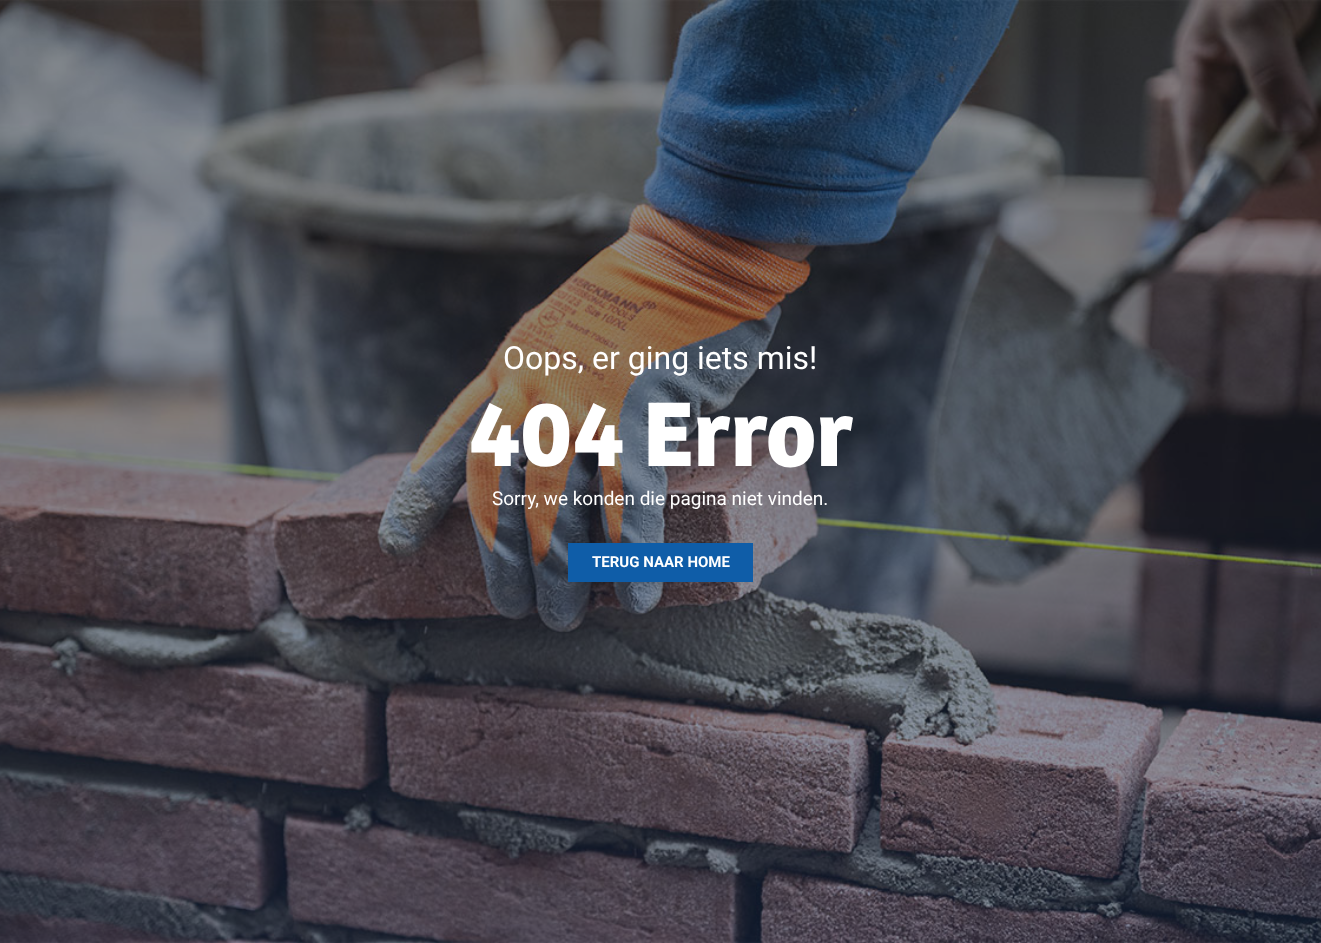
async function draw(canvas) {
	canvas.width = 1321;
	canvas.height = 943;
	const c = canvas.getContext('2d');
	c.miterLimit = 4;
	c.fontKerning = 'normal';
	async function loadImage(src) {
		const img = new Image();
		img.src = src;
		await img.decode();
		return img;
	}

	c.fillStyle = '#fff';
	c.fillRect(0, 0, 1321, 943);
	c.drawImage(await loadImage('img1.png'), 0, 0, 1321, 943);
	c.font = '32px Roboto';
	c.fillText('Oops, er ging iets mis!', 503, 369);
	c.font = 'bold 95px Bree';
	c.fillText('404 Error', 468, 466);
	c.font = '19px Roboto';
	c.fillText('Sorry, we konden die pagina niet vinden.', 492, 505);
	c.fillStyle = '#0f5da8';
	c.fillRect(568, 543, 185, 39);
	c.font = 'bold 15px Roboto';
	c.fillStyle = '#fff';
	c.fillText('TERUG NAAR HOME', 592, 567);
}

draw(document.querySelector('canvas'));
